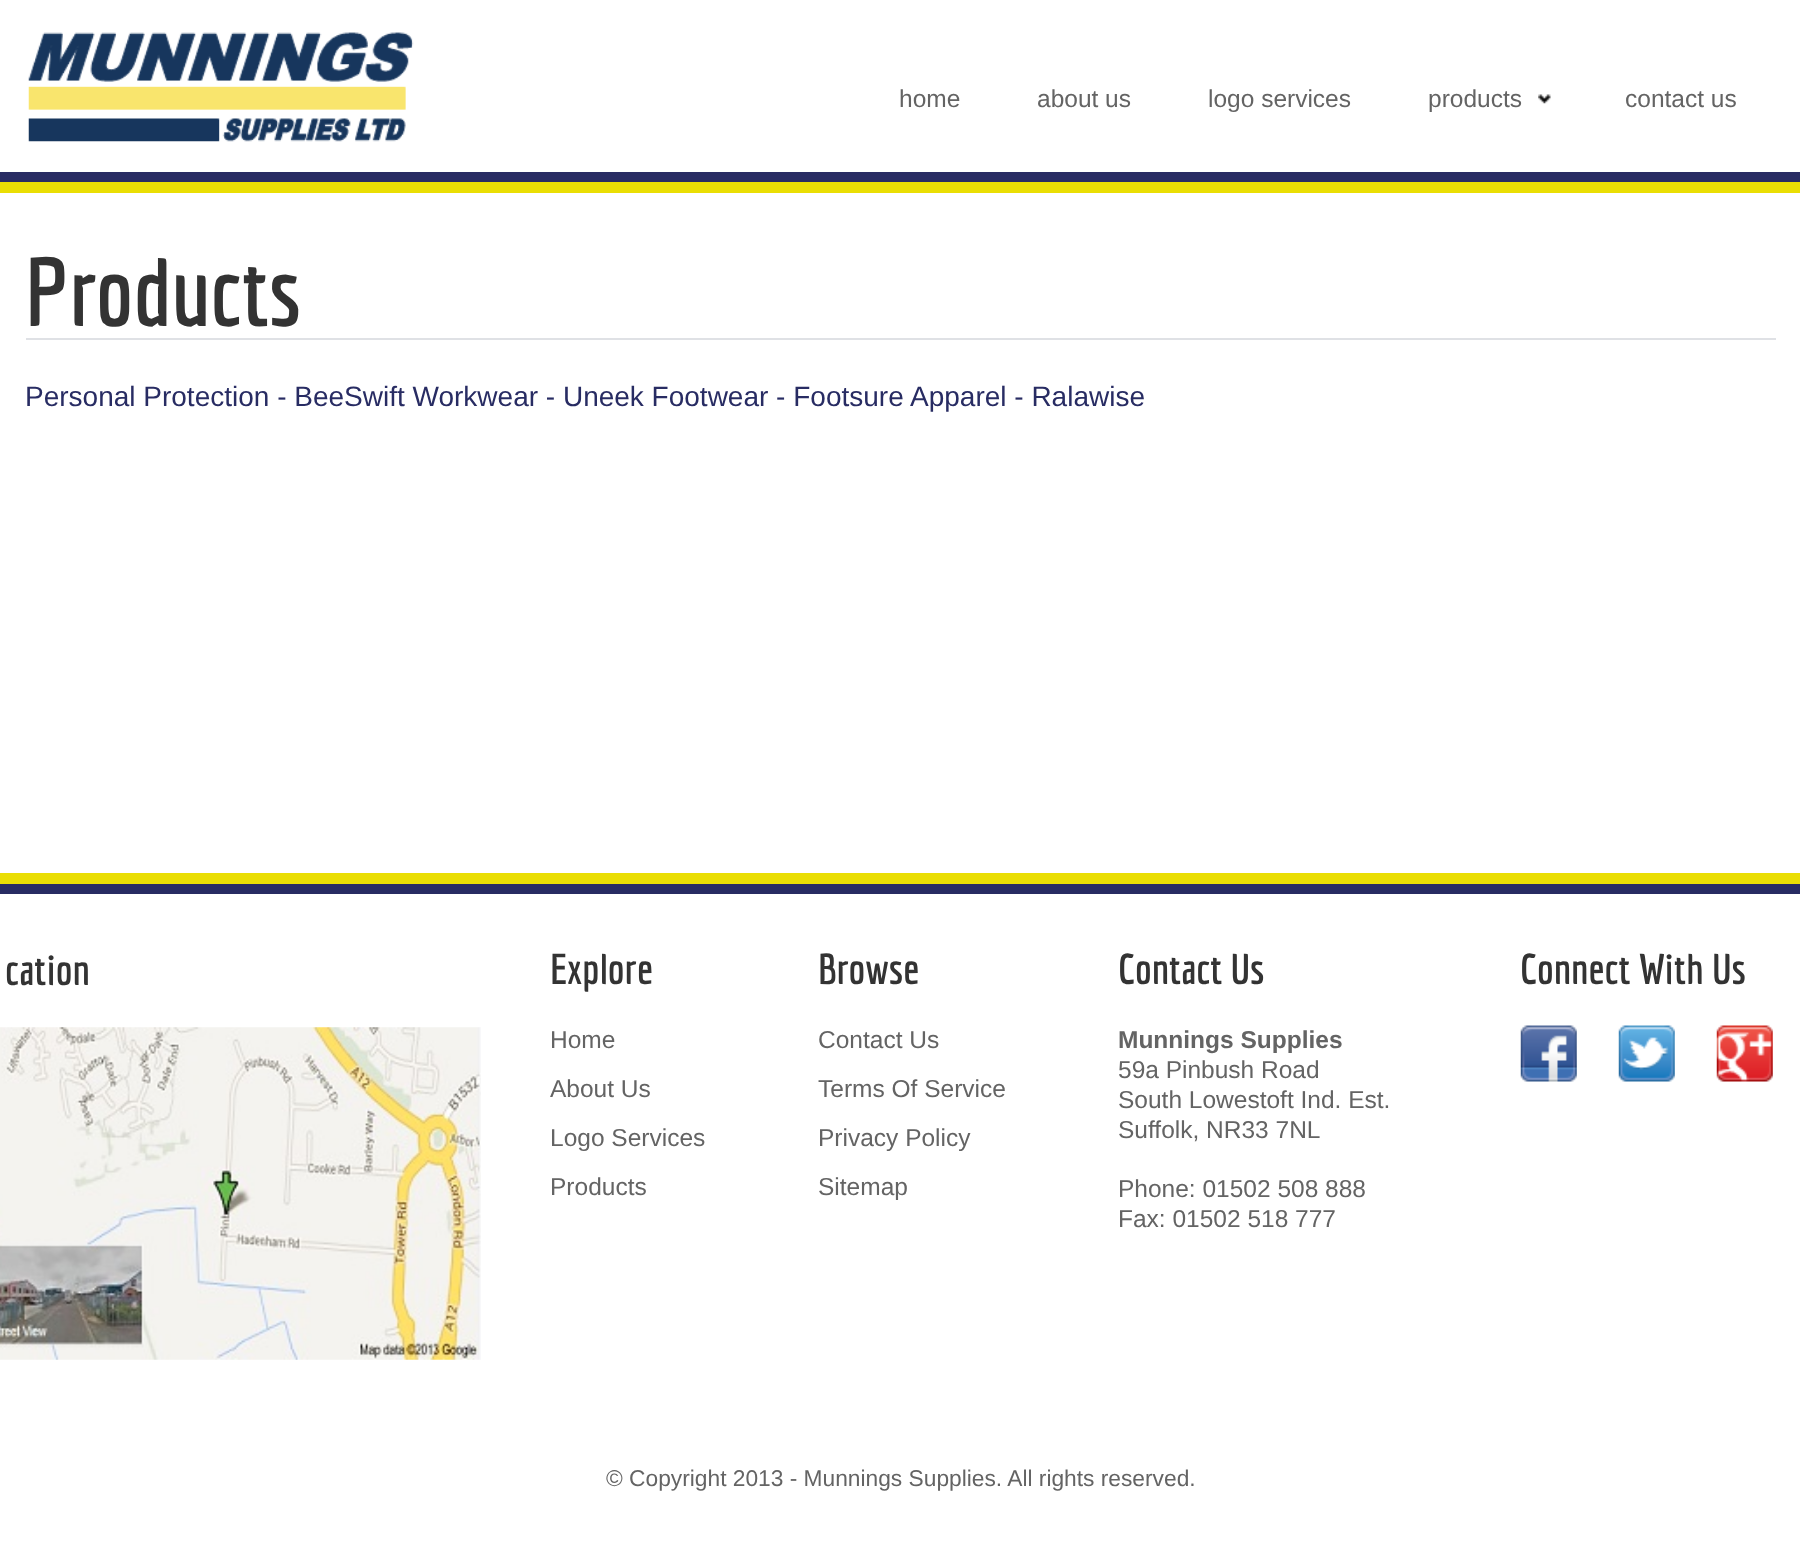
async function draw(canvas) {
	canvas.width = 1800;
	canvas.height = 1546;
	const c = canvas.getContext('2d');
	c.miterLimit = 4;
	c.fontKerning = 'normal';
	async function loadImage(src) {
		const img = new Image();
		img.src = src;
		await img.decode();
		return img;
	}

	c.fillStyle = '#fff';
	c.fillRect(0, 0, 1800, 1546);
	c.drawImage(await loadImage('img1.png'), 28, 32, 386, 110);
	c.font = '24.5px Liberation Sans';
	c.fillStyle = '#646464';
	for (const [text, x, y] of [
		['home', 899, 107],
		['about us', 1037, 107],
		['logo services', 1208, 107],
		['products', 1428, 107],
	]) {
		c.fillText(text, x, y);
	}
	c.drawImage(await loadImage('img2.png'), 1538, 94, 13, 10);
	c.fillText('contact us', 1625, 107);
	c.fillStyle = '#282c63';
	c.fillRect(0, 172, 1800, 10);
	c.fillStyle = '#eade04';
	c.fillRect(0, 182, 1800, 11);
	c.font = 'bold 94.5px Economica';
	c.fillStyle = '#333';
	c.fillText('Products', 25, 326);
	c.fillStyle = '#dfe1e5';
	c.fillRect(26, 338, 1750, 2);
	c.font = '28px Liberation Sans';
	c.fillStyle = '#282c63';
	c.fillText('Personal Protection - BeeSwift Workwear - Uneek Footwear - Footsure', 25, 406);
	c.fillText('Apparel - Ralawise', 910, 406);
	c.fillRect(0, 884, 1800, 10);
	c.fillStyle = '#eade04';
	c.fillRect(0, 873, 1800, 11);
	c.font = 'bold 42px Economica';
	c.fillStyle = '#333';
	c.fillText('cation', 5, 985);
	c.drawImage(await loadImage('img3.png'), 0, 1027, 481, 333);
	c.fillText('Explore', 550, 984);
	c.font = '24.5px Liberation Sans';
	c.fillStyle = '#646464';
	for (const [text, x, y] of [
		['Home', 550, 1048],
		['About Us', 550, 1097],
		['Logo Services', 550, 1146],
		['Products', 550, 1195],
	]) {
		c.fillText(text, x, y);
	}
	c.font = 'bold 42px Economica';
	c.fillStyle = '#333';
	c.fillText('Browse', 818, 984);
	c.font = '24.5px Liberation Sans';
	c.fillStyle = '#646464';
	for (const [text, x, y] of [
		['Contact Us', 818, 1048],
		['Terms Of Service', 818, 1097],
		['Privacy Policy', 818, 1146],
		['Sitemap', 818, 1195],
	]) {
		c.fillText(text, x, y);
	}
	c.font = 'bold 42px Economica';
	c.fillStyle = '#333';
	c.fillText('Contact Us', 1118, 984);
	c.font = 'bold 24.5px Liberation Sans';
	c.fillStyle = '#646464';
	c.fillText('Munnings Supplies', 1118, 1048);
	c.font = '24.5px Liberation Sans';
	for (const [text, x, y] of [
		['59a Pinbush Road', 1118, 1078],
		['South Lowestoft Ind. Est.', 1118, 1108],
		['Suffolk, NR33 7NL', 1118, 1138],
		['Phone: 01502 508 888', 1118, 1197],
		['Fax: 01502 518 777', 1118, 1227],
	]) {
		c.fillText(text, x, y);
	}
	c.font = 'bold 42px Economica';
	c.fillStyle = '#333';
	c.fillText('Connect With Us', 1520, 984);
	c.drawImage(await loadImage('img4.png'), 1520, 1025, 57, 57);
	c.drawImage(await loadImage('img5.png'), 1618, 1025, 57, 57);
	c.drawImage(await loadImage('img6.png'), 1716, 1025, 57, 57);
	c.font = '22.75px Liberation Sans';
	c.fillStyle = '#646464';
	c.fillText('© Copyright 2013 - Munnings Supplies. All rights reserved.', 606, 1486);
}

draw(document.querySelector('canvas'));
